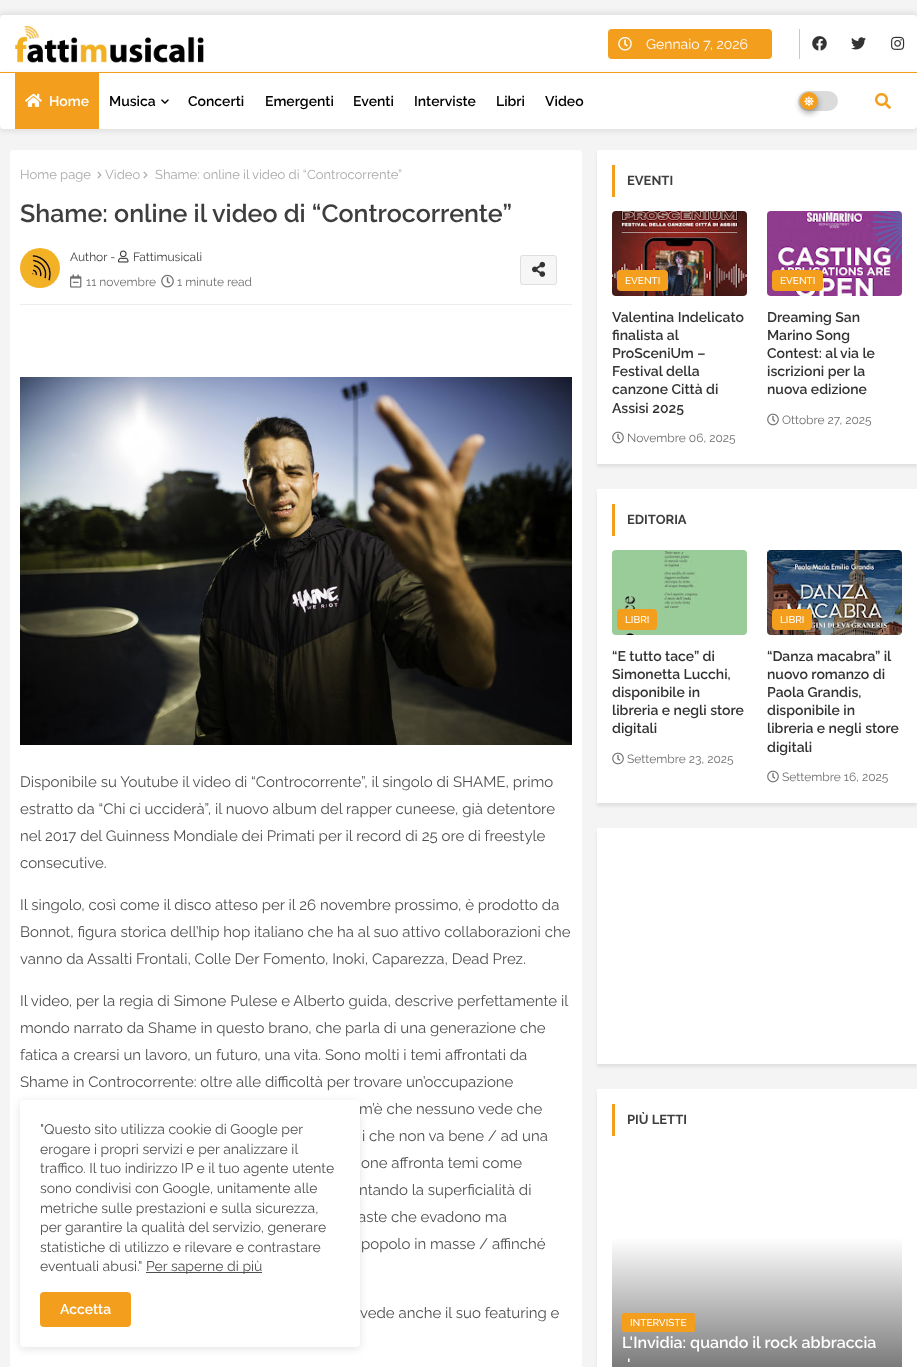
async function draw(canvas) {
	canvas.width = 917;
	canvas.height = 1367;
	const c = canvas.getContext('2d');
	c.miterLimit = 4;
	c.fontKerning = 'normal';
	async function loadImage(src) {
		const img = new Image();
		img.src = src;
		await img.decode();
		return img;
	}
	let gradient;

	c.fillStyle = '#f4f4f4';
	c.fillRect(0, 0, 917, 1367);
	c.fillStyle = '#00000012';
	c.filter = 'blur(2.5px)';
	c.beginPath();
	c.roundRect(-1, 12, 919, 59, 5);
	c.fill();
	c.filter = 'none';
	c.fillStyle = '#fff';
	c.beginPath();
	c.roundRect(0, 15, 917, 57, [4, 4, 0, 0]);
	c.fill();
	c.drawImage(await loadImage('img1.png'), 15, 26, 189, 37);
	c.fillStyle = '#f49e1e';
	c.beginPath();
	c.roundRect(608, 29, 164, 30, 4);
	c.fill();
	c.drawImage(await loadImage('img2.png'), 618, 37, 14, 14);
	c.font = '14px Raleway';
	c.fillStyle = '#fff';
	c.fillText('Gennaio 7, 2026', 646, 49);
	c.fillStyle = '#c9c9c9';
	c.fillRect(799, 29, 1, 30);
	c.drawImage(await loadImage('img3.png'), 812, 36, 15, 15);
	c.drawImage(await loadImage('img4.png'), 851, 37, 15, 13);
	c.drawImage(await loadImage('img5.png'), 891, 36, 14, 14);
	c.fillStyle = '#00000012';
	c.filter = 'blur(2.5px)';
	c.beginPath();
	c.roundRect(-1, 73, 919, 59, 5);
	c.fill();
	c.filter = 'none';
	c.fillStyle = '#fff';
	c.beginPath();
	c.roundRect(0, 72, 917, 57, [0, 0, 4, 4]);
	c.fill();
	c.fillStyle = '#f49e1e';
	c.fillRect(0, 72, 917, 1);
	c.fillRect(15, 73, 84, 56);
	c.drawImage(await loadImage('img6.png'), 25, 93, 17, 14);
	c.font = '600 14px Raleway';
	c.fillStyle = '#fff';
	c.fillText('Home', 49, 106);
	c.fillStyle = '#000';
	c.fillText('Musica', 109, 106);
	c.drawImage(await loadImage('img7.png'), 161, 99, 8, 5);
	for (const [text, x, y] of [
		['Concerti', 188, 106],
		['Emergenti', 265, 106],
		['Eventi', 353, 106],
		['Interviste', 414, 106],
		['Libri', 496, 106],
		['Video', 545, 106],
	]) {
		c.fillText(text, x, y);
	}
	c.fillStyle = '#dbdbdb';
	c.beginPath();
	c.roundRect(798, 91, 40, 20, 10);
	c.fill();
	c.fillStyle = '#0000003b';
	c.filter = 'blur(3px)';
	c.beginPath();
	c.roundRect(800, 95, 18, 18, 9);
	c.fill();
	c.filter = 'none';
	c.fillStyle = '#00000029';
	c.filter = 'blur(3px)';
	c.beginPath();
	c.roundRect(800, 95, 18, 18, 9);
	c.fill();
	c.filter = 'none';
	c.fillStyle = '#f49e1e';
	c.beginPath();
	c.arc(809, 101, 9, 0, 2 * Math.PI);
	c.fill();
	c.drawImage(await loadImage('img8.png'), 804, 96, 10, 11);
	c.drawImage(await loadImage('img9.png'), 875, 93, 16, 16);
	c.fillStyle = '#fff';
	c.beginPath();
	c.roundRect(10, 150, 572, 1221, 4);
	c.fill();
	c.font = '13px Raleway';
	c.fillStyle = '#aaa';
	c.fillText('Home page', 20, 179);
	c.drawImage(await loadImage('img10.png'), 97, 171, 5, 8);
	c.fillText('Video', 105, 179);
	c.drawImage(await loadImage('img10.png'), 143, 171, 5, 8);
	c.fillText('Shame: online il video di “Controcorrente”', 155, 179);
	c.font = '600 25px Raleway';
	c.fillStyle = '#3e3e3e';
	c.fillText('Shame: online il video di “Controcorrente”', 20, 222);
	c.fillStyle = '#ececec';
	c.fillRect(20, 304, 552, 1);
	c.drawImage(await loadImage('img11.png'), 20, 248, 40, 40);
	c.font = '12px Raleway';
	c.fillStyle = '#3e3e3e';
	c.fillText('Author -', 70, 261);
	c.drawImage(await loadImage('img12.png'), 118, 250, 11, 13);
	c.fillText('Fattimusicali', 133, 261);
	c.drawImage(await loadImage('img13.png'), 70, 274, 12, 14);
	c.fillStyle = '#707070';
	c.fillText('11 novembre', 86, 286);
	c.drawImage(await loadImage('img14.png'), 161, 274, 13, 14);
	c.fillText('1 minute read', 177, 286);
	c.fillStyle = '#f6f6f6';
	c.beginPath();
	c.roundRect(520, 255, 37, 30, 3);
	c.fill();
	c.beginPath();
	c.roundRect(520.5, 255.5, 36, 29, 2.5);
	c.strokeStyle = '#81818130';
	c.stroke();
	c.drawImage(await loadImage('img15.png'), 532, 261, 14, 16);
	c.drawImage(await loadImage('img16.png'), 20, 377, 552, 368);
	c.font = '15px Raleway';
	c.fillStyle = '#505050';
	for (const [text, x, y] of [
		['Disponibile su Youtube il video di “Controcorrente”, il singolo di SHAME, primo', 20, 787],
		['estratto da “Chi ci ucciderà”, il nuovo album del rapper cuneese, già detentore', 20, 814],
		['nel 2017 del Guinness Mondiale dei Primati per il record di 25 ore di freestyle', 20, 841],
		['consecutive.', 20, 868],
		['Il singolo, così come il disco atteso per il 26 novembre prossimo, è prodotto da', 20, 910],
		['Bonnot, figura storica dell’hip hop italiano che ha al suo attivo collaborazioni che', 20, 937],
		['vanno da Assalti Frontali, Colle Der Fomento, Inoki, Caparezza, Dead Prez.', 20, 964],
		['Il video, per la regia di Simone Pulese e Alberto guida, descrive perfettamente il', 20, 1006],
		['mondo narrato da Shame in questo brano, che parla di una generazione che', 20, 1033],
		['fatica a crearsi un lavoro, un futuro, una vita. Sono molti i temi affrontati da', 20, 1060],
		['Shame in Controcorrente: oltre alle difficoltà per trovare un’occupazione', 20, 1087],
		['m’è che nessuno vede che', 359, 1114],
		['i che non va bene / ad una', 362, 1141],
		['one affronta temi come', 361, 1168],
		['ntando la superficialità di', 359, 1195],
		['aste che evadono ma', 358, 1222],
		['popolo in masse / affinché', 361, 1249],
		['vede anche il suo featuring e', 360, 1318],
	]) {
		c.fillText(text, x, y);
	}
	c.fillStyle = '#00000014';
	c.filter = 'blur(1.5px)';
	c.beginPath();
	c.rect(597, 153, 320, 314);
	c.fill();
	c.filter = 'none';
	c.fillStyle = '#fff';
	c.fillRect(597, 150, 320, 314);
	c.fillStyle = '#f49e1e';
	c.fillRect(612, 165, 3, 32);
	c.font = 'bold 13px Raleway';
	c.fillStyle = '#3e3e3e';
	c.fillText('EVENTI', 627, 185);
	c.drawImage(await loadImage('img17.png'), 612, 211, 135, 85);
	c.fillStyle = '#f49e1e';
	c.beginPath();
	c.roundRect(617, 270, 51, 21, 4);
	c.fill();
	c.font = '500 10px Raleway';
	c.fillStyle = '#fff';
	c.fillText('EVENTI', 625, 284);
	c.font = '600 14px Raleway';
	c.fillStyle = '#333';
	for (const [text, x, y] of [
		['Valentina Indelicato', 612, 322],
		['finalista al', 612, 340],
		['ProSceniUm –', 612, 358],
		['Festival della', 612, 376],
		['canzone Città di', 612, 394],
		['Assisi 2025', 612, 413],
	]) {
		c.fillText(text, x, y);
	}
	c.drawImage(await loadImage('img18.png'), 612, 431, 12, 13);
	c.font = '12px Raleway';
	c.fillStyle = '#707070';
	c.fillText('Novembre 06, 2025', 627, 442);
	c.drawImage(await loadImage('img19.png'), 767, 211, 135, 85);
	c.fillStyle = '#f49e1e';
	c.beginPath();
	c.roundRect(772, 270, 51, 21, 4);
	c.fill();
	c.font = '500 10px Raleway';
	c.fillStyle = '#fff';
	c.fillText('EVENTI', 780, 284);
	c.font = '600 14px Raleway';
	c.fillStyle = '#333';
	for (const [text, x, y] of [
		['Dreaming San', 767, 322],
		['Marino Song', 767, 340],
		['Contest: al via le', 767, 358],
		['iscrizioni per la', 767, 376],
		['nuova edizione', 767, 394],
	]) {
		c.fillText(text, x, y);
	}
	c.drawImage(await loadImage('img18.png'), 767, 413, 12, 13);
	c.font = '12px Raleway';
	c.fillStyle = '#707070';
	c.fillText('Ottobre 27, 2025', 782, 424);
	c.fillStyle = '#00000014';
	c.filter = 'blur(1.5px)';
	c.beginPath();
	c.rect(597, 492, 320, 314);
	c.fill();
	c.filter = 'none';
	c.fillStyle = '#fff';
	c.fillRect(597, 489, 320, 314);
	c.fillStyle = '#f49e1e';
	c.fillRect(612, 504, 3, 32);
	c.font = 'bold 13px Raleway';
	c.fillStyle = '#3e3e3e';
	c.fillText('EDITORIA', 627, 524);
	c.drawImage(await loadImage('img20.png'), 612, 550, 135, 85);
	c.fillStyle = '#f49e1e';
	c.beginPath();
	c.roundRect(617, 609, 40, 21, 4);
	c.fill();
	c.font = '500 10px Raleway';
	c.fillStyle = '#fff';
	c.fillText('LIBRI', 625, 623);
	c.font = '600 14px Raleway';
	c.fillStyle = '#333';
	for (const [text, x, y] of [
		['“E tutto tace” di', 612, 661],
		['Simonetta Lucchi,', 612, 679],
		['disponibile in', 612, 697],
		['libreria e negli store', 612, 715],
		['digitali', 612, 733],
	]) {
		c.fillText(text, x, y);
	}
	c.drawImage(await loadImage('img18.png'), 612, 752, 12, 13);
	c.font = '12px Raleway';
	c.fillStyle = '#707070';
	c.fillText('Settembre 23, 2025', 627, 763);
	c.drawImage(await loadImage('img21.png'), 767, 550, 135, 85);
	c.fillStyle = '#f49e1e';
	c.beginPath();
	c.roundRect(772, 609, 40, 21, 4);
	c.fill();
	c.font = '500 10px Raleway';
	c.fillStyle = '#fff';
	c.fillText('LIBRI', 780, 623);
	c.font = '600 14px Raleway';
	c.fillStyle = '#333';
	for (const [text, x, y] of [
		['“Danza macabra” il', 767, 661],
		['nuovo romanzo di', 767, 679],
		['Paola Grandis,', 767, 697],
		['disponibile in', 767, 715],
		['libreria e negli store', 767, 733],
		['digitali', 767, 752],
	]) {
		c.fillText(text, x, y);
	}
	c.drawImage(await loadImage('img18.png'), 767, 770, 12, 13);
	c.font = '12px Raleway';
	c.fillStyle = '#707070';
	c.fillText('Settembre 16, 2025', 782, 781);
	c.fillStyle = '#00000014';
	c.filter = 'blur(1.5px)';
	c.beginPath();
	c.rect(597, 831, 320, 236);
	c.fill();
	c.filter = 'none';
	c.fillStyle = '#fff';
	c.fillRect(597, 828, 320, 236);
	c.fillStyle = '#00000014';
	c.filter = 'blur(1.5px)';
	c.beginPath();
	c.rect(597, 1092, 320, 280);
	c.fill();
	c.filter = 'none';
	c.fillStyle = '#fff';
	c.fillRect(597, 1089, 320, 278);
	c.fillStyle = '#f49e1e';
	c.fillRect(612, 1104, 3, 32);
	c.font = 'bold 13px Raleway';
	c.fillStyle = '#3e3e3e';
	c.fillText('PIÙ LETTI', 627, 1124);
	gradient = c.createLinearGradient(757, 1237, 757, 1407);
	gradient.addColorStop(0, '#fff');
	gradient.addColorStop(1, '#525252');
	c.fillStyle = gradient;
	c.fillRect(612, 1239, 290, 128);
	c.fillStyle = '#f49e1e';
	c.beginPath();
	c.roundRect(622, 1313, 73, 19, 2);
	c.fill();
	c.font = '500 10px Raleway';
	c.fillStyle = '#fff';
	c.fillText('INTERVISTE', 630, 1326);
	c.font = '600 16px Raleway';
	c.fillText('L\'Invidia: quando il rock abbraccia', 622, 1348);
	c.fillText('\'', 627, 1370);
	c.fillStyle = '#0000001c';
	c.filter = 'blur(4px)';
	c.beginPath();
	c.roundRect(20, 1102, 340, 247, 4);
	c.fill();
	c.filter = 'none';
	c.fillStyle = '#fff';
	c.beginPath();
	c.roundRect(20, 1100, 340, 247, 4);
	c.fill();
	c.font = '14px Raleway';
	c.fillStyle = '#505050';
	for (const [text, x, y] of [
		['"Questo sito utilizza cookie di Google per', 40, 1134],
		['erogare i propri servizi e per analizzare il', 40, 1154],
		['traffico. Il tuo indirizzo IP e il tuo agente utente', 40, 1173],
		['sono condivisi con Google, unitamente alle', 40, 1193],
		['metriche sulle prestazioni e sulla sicurezza,', 40, 1213],
		['per garantire la qualità del servizio, generare', 40, 1232],
		['statistiche di utilizzo e rilevare e contrastare', 40, 1252],
		['eventuali abusi."', 40, 1271],
	]) {
		c.fillText(text, x, y);
	}
	c.fillStyle = '#4e4e4e';
	c.fillRect(146, 1272, 116, 1);
	c.fillStyle = '#505050';
	c.fillText('Per saperne di più', 146, 1271);
	c.fillStyle = '#f49e1e';
	c.beginPath();
	c.roundRect(40, 1292, 91, 35, 4);
	c.fill();
	c.font = '600 14px Raleway';
	c.fillStyle = '#fff';
	c.fillText('Accetta', 60, 1314);
}

draw(document.querySelector('canvas'));
